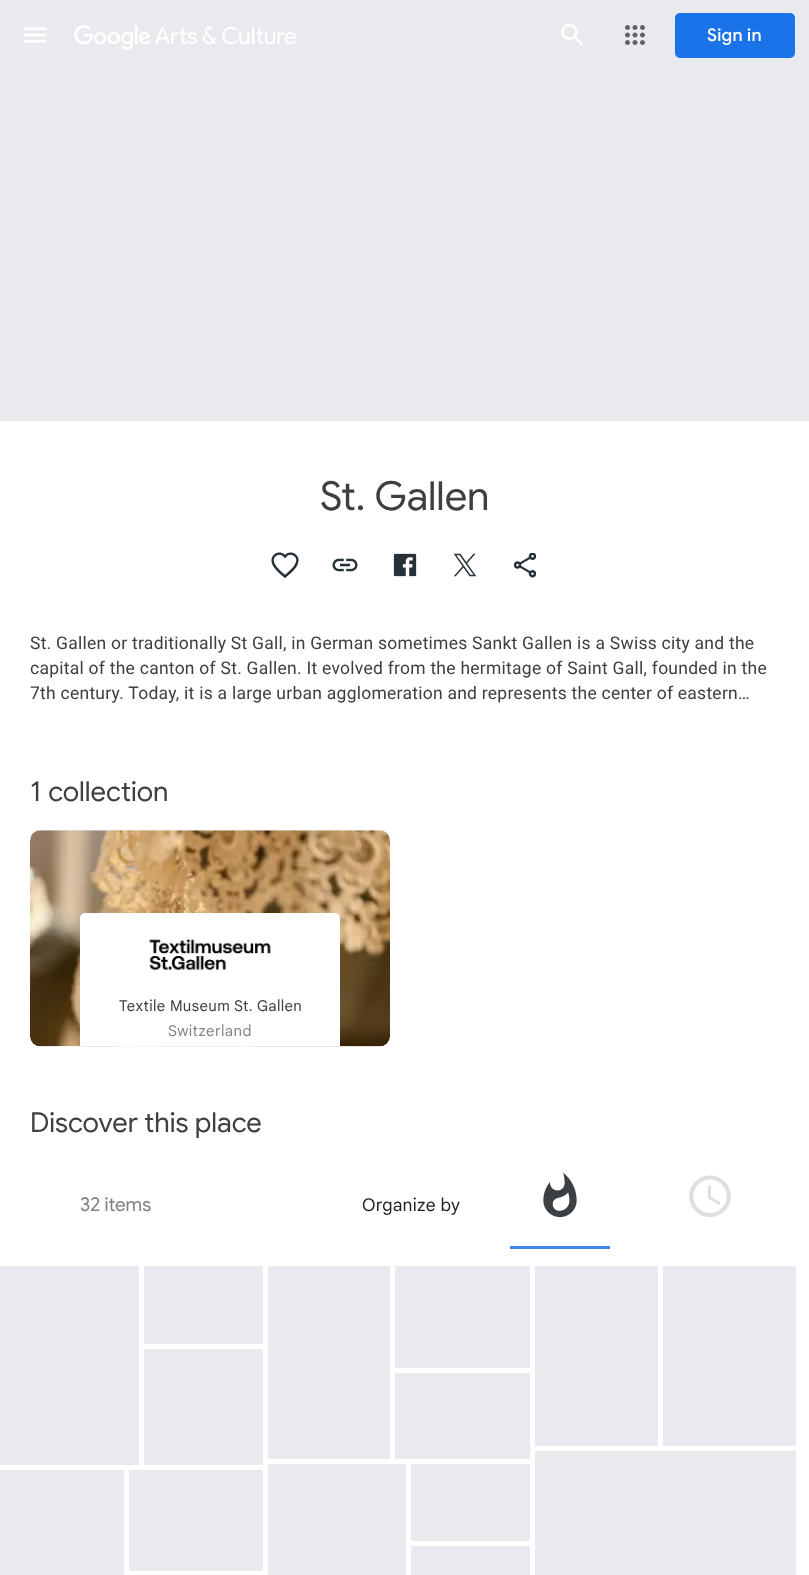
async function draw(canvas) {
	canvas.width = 809;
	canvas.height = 1575;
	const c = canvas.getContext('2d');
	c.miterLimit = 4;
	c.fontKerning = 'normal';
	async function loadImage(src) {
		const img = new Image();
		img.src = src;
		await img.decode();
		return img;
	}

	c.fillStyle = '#fff';
	c.fillRect(0, 0, 809, 1575);
	c.fillStyle = '#e8eaed';
	c.fillRect(0, 0, 809, 421);
	c.drawImage(await loadImage('img1.png'), 23, 27, 24, 16);
	c.drawImage(await loadImage('img2.png'), 74, 25, 222, 25);
	c.drawImage(await loadImage('img3.png'), 561, 23, 22, 23);
	c.drawImage(await loadImage('img4.png'), 625, 25, 20, 20);
	c.fillStyle = '#1a73e8';
	c.beginPath();
	c.roundRect(675, 13, 120, 45, 5);
	c.fill();
	c.letterSpacing = '0.25px';
	c.font = '500 17.5px Google Sans';
	c.fillStyle = '#fff';
	c.fillText('Sign in', 707, 41);
	c.letterSpacing = '0px';
	c.font = '40px Google Sans';
	c.fillStyle = '#3c4043';
	c.fillText('St. Gallen', 320, 510);
	c.beginPath();
	c.moveTo(285, 576.5);
	c.bezierCurveTo(281, 573, 275.5, 569, 273.5, 564);
	c.bezierCurveTo(269.5, 556, 279.5, 550, 285, 556.5);
	c.bezierCurveTo(290.5, 550, 300.5, 556, 296.5, 564);
	c.bezierCurveTo(294.5, 569, 289, 573, 285, 576.5);
	c.closePath();
	c.strokeStyle = '#263238';
	c.lineWidth = 2.5;
	c.stroke();
	c.drawImage(await loadImage('img5.png'), 332, 558, 26, 14);
	c.drawImage(await loadImage('img6.png'), 393, 553, 24, 24);
	c.drawImage(await loadImage('img7.png'), 453, 553, 24, 24);
	c.drawImage(await loadImage('img8.png'), 514, 553, 22, 25);
	c.letterSpacing = '0.25px';
	c.font = '17.5px Roboto';
	for (const [text, x, y] of [
		['St. Gallen or traditionally St Gall, in German sometimes Sankt Gallen is a Swiss city and the', 30, 649],
		['capital of the canton of St. Gallen. It evolved from the hermitage of Saint Gall, founded in the', 30, 674],
		['7th century. Today, it is a large urban agglomeration and represents the center of eastern…', 30, 699],
	]) {
		c.fillText(text, x, y);
	}
	c.letterSpacing = '0px';
	c.font = '27.5px Google Sans';
	c.fillText('1 collection', 30, 801);
	c.fillStyle = '#dadce0';
	c.beginPath();
	c.roundRect(30, 830, 360, 216, 10);
	c.fill();
	c.drawImage(await loadImage('img9.png'), 30, 830, 360, 217);
	c.fillStyle = '#fff';
	c.beginPath();
	c.roundRect(80, 913, 260, 133, [5, 5, 0, 0]);
	c.fill();
	c.drawImage(await loadImage('img10.png'), 149, 938, 122, 32);
	c.letterSpacing = '0.4px';
	c.font = '15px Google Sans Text';
	c.fillStyle = '#3c4043';
	c.fillText('Textile Museum St. Gallen', 119, 1011);
	c.fillStyle = '#80868b';
	c.fillText('Switzerland', 168, 1036);
	c.letterSpacing = '0px';
	c.font = '27.5px Google Sans';
	c.fillStyle = '#3c4043';
	c.fillText('Discover this place', 30, 1132);
	c.font = '19px Google Sans';
	c.fillStyle = '#808080';
	c.fillText('32 items', 80, 1211);
	c.letterSpacing = '0.25px';
	c.font = '17.5px Google Sans Text';
	c.fillStyle = '#202124';
	c.fillText('Organize by', 362, 1211);
	c.drawImage(await loadImage('img11.png'), 543, 1172, 34, 46);
	c.fillStyle = '#4285f4';
	c.fillRect(510, 1246, 100, 3);
	c.drawImage(await loadImage('img12.png'), 689, 1175, 42, 42);
	for (const [x, y, w, h, color] of [
		[0, 1266, 139, 199, '#e8eaed'],
		[144, 1266, 119, 78, '#e8eaed'],
		[144, 1349, 119, 116, '#e8eaed'],
		[0, 1470, 124, 105, '#e8eaed'],
		[129, 1470, 134, 101, '#e8eaed'],
		[268, 1266, 122, 193, '#e8eaed'],
		[395, 1266, 135, 102, '#e8eaed'],
		[395, 1373, 135, 86, '#e8eaed'],
		[268, 1464, 138, 111, '#e8eaed'],
		[411, 1464, 119, 77, '#e8eaed'],
		[411, 1546, 119, 29, '#e8eaed'],
		[535, 1266, 123, 180, '#e8eaed'],
		[663, 1266, 133, 180, '#e8eaed'],
		[535, 1451, 261, 124, '#e8eaed'],
	]) {
		c.fillStyle = color;
		c.fillRect(x, y, w, h);
	}
}

draw(document.querySelector('canvas'));
